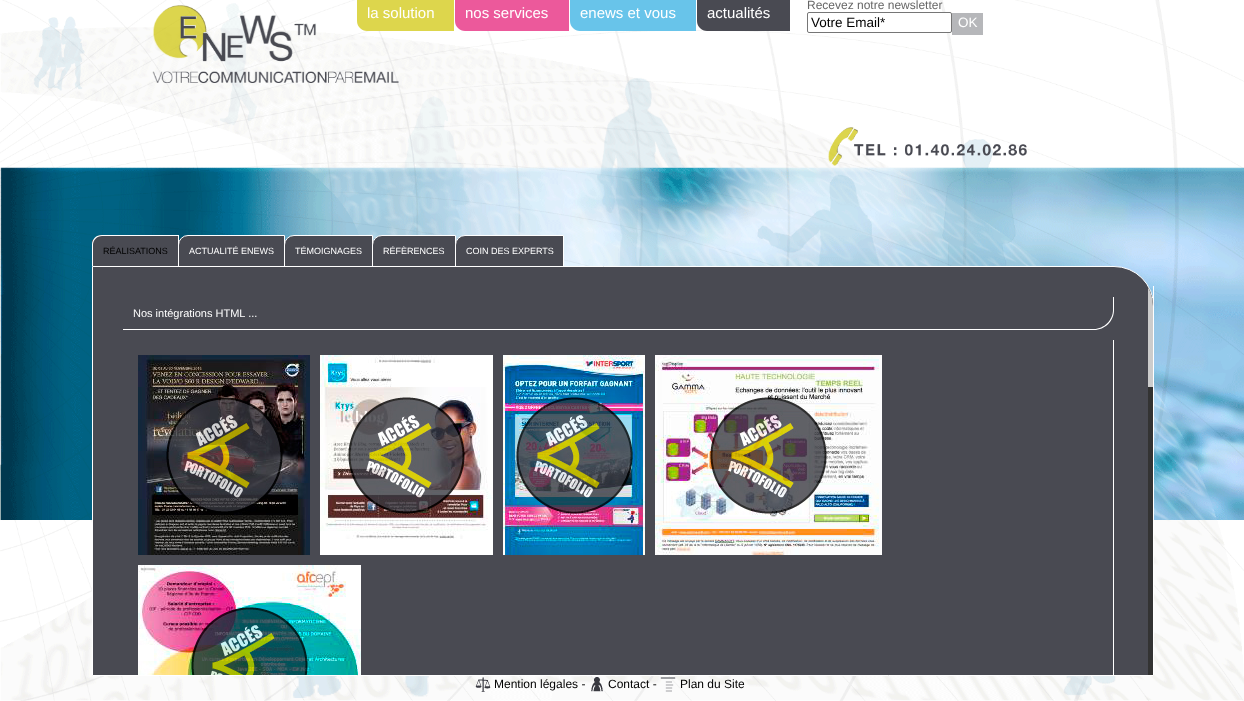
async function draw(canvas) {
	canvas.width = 1244;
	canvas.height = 701;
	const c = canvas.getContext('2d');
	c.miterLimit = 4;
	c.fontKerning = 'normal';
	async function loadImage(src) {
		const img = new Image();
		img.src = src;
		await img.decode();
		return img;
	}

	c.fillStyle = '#fff';
	c.fillRect(0, 0, 1244, 701);
	c.drawImage(await loadImage('img8.png'), 0, 0, 1244, 701);
	c.drawImage(await loadImage('img1.png'), 152, 5, 247, 78);
	c.fillStyle = '#ddd64c';
	c.beginPath();
	c.moveTo(357, -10);
	c.lineTo(454, -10);
	c.lineTo(454, 31);
	c.lineTo(367, 31);
	c.bezierCurveTo(361.5, 31, 357, 26.5, 357, 21);
	c.closePath();
	c.fill();
	c.font = '15px Liberation Sans';
	c.fillStyle = '#fff';
	c.fillText('la solution', 367, 18);
	c.fillStyle = '#ec599b';
	c.beginPath();
	c.moveTo(455, -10);
	c.lineTo(569, -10);
	c.lineTo(569, 31);
	c.lineTo(465, 31);
	c.bezierCurveTo(459.5, 31, 455, 26.5, 455, 21);
	c.closePath();
	c.fill();
	c.fillStyle = '#fff';
	c.fillText('nos services', 465, 18);
	c.fillStyle = '#68c4ea';
	c.beginPath();
	c.moveTo(570, -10);
	c.lineTo(696, -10);
	c.lineTo(696, 31);
	c.lineTo(580, 31);
	c.bezierCurveTo(574.5, 31, 570, 26.5, 570, 21);
	c.closePath();
	c.fill();
	c.fillStyle = '#fff';
	c.fillText('enews et vous', 580, 18);
	c.fillStyle = '#494a52';
	c.beginPath();
	c.moveTo(697, -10);
	c.lineTo(790, -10);
	c.lineTo(790, 31);
	c.lineTo(707, 31);
	c.bezierCurveTo(701.5, 31, 697, 26.5, 697, 21);
	c.closePath();
	c.fill();
	c.fillStyle = '#fff';
	c.fillText('actualités', 707, 18);
	c.font = '12px Liberation Sans';
	c.fillStyle = '#666';
	c.fillText('Recevez notre newsletter', 807, 9);
	c.fillStyle = '#fff';
	c.beginPath();
	c.roundRect(807.5, 12.5, 144, 20, 1.5);
	c.fill();
	c.strokeStyle = '#767676';
	c.stroke();
	c.font = '13.5px Liberation Sans';
	c.fillStyle = '#000';
	c.fillText('Votre Email*', 811, 27);
	c.fillStyle = '#b6b7ba';
	c.fillRect(952, 13, 31, 22);
	c.fillStyle = '#fff';
	c.fillText('OK', 958, 27);
	c.drawImage(await loadImage('img2.png'), 828, 127, 199, 39);
	c.fillStyle = '#494a52';
	c.fillRect(92, 240, 365, 5);
	c.beginPath();
	c.roundRect(178.5, 235.5, 106, 31, [9.5, 0, 0, 0]);
	c.fill();
	c.strokeStyle = '#fff';
	c.stroke();
	c.beginPath();
	c.roundRect(92, 235, 87, 31, [10, 0, 0, 0]);
	c.fill();
	c.fillStyle = '#fff';
	c.beginPath();
	c.moveTo(102, 235);
	c.lineTo(179, 235);
	c.lineTo(179, 266);
	c.lineTo(92, 266);
	c.lineTo(92, 245);
	c.bezierCurveTo(92, 239, 96, 235, 102, 235);
	c.closePath();
	c.moveTo(102, 236);
	c.lineTo(178, 236);
	c.lineTo(178, 266);
	c.lineTo(93, 266);
	c.lineTo(93, 245);
	c.bezierCurveTo(93, 240, 97, 236, 102, 236);
	c.closePath();
	c.fill('evenodd');
	c.font = '9px Liberation Sans';
	c.fillStyle = '#000';
	c.fillText('RÉALISATIONS', 103, 254);
	c.fillStyle = '#494a52';
	c.beginPath();
	c.roundRect(284.5, 235.5, 88, 31, [9.5, 0, 0, 0]);
	c.fill();
	c.stroke();
	c.beginPath();
	c.roundRect(372.5, 235.5, 83, 31, [9.5, 0, 0, 0]);
	c.fill();
	c.stroke();
	c.beginPath();
	c.roundRect(455.5, 235.5, 108, 31, [9.5, 0, 0, 0]);
	c.fill();
	c.stroke();
	c.fillStyle = '#fff';
	c.fillRect(1153, 286, 1, 20);
	c.fillStyle = '#494a52';
	c.beginPath();
	c.roundRect(92.5, 266.5, 1061, 409, [0, 39.5, 0, 0]);
	c.fill();
	c.stroke();
	c.fillStyle = '#fff';
	c.beginPath();
	c.moveTo(123, 297);
	c.lineTo(1114, 297);
	c.lineTo(1114, 310);
	c.bezierCurveTo(1114, 321, 1105, 330, 1094, 330);
	c.lineTo(123, 330);
	c.closePath();
	c.moveTo(123, 297);
	c.lineTo(1113, 297);
	c.lineTo(1113, 310);
	c.bezierCurveTo(1113, 320, 1104, 329, 1094, 329);
	c.lineTo(123, 329);
	c.closePath();
	c.fill('evenodd');
	c.font = '11px Liberation Sans';
	c.fillText('Nos intégrations HTML ...', 133, 317);
	c.fillRect(1113, 340, 1, 335);
	c.drawImage(await loadImage('img3.png'), 138, 355, 172, 200);
	c.drawImage(await loadImage('img4.png'), 320, 355, 173, 200);
	c.drawImage(await loadImage('img5.png'), 503, 355, 142, 200);
	c.drawImage(await loadImage('img6.png'), 655, 355, 227, 200);
	c.drawImage(await loadImage('img7.png'), 138, 565, 223, 110);
	c.save();
	c.beginPath();
	c.roundRect(93, 267, 1060, 408, [0, 39, 0, 0]);
	c.clip();
	c.fillStyle = '#333';
	c.fillRect(1148, 287, 5, 388);
	c.fillStyle = '#ccc';
	c.fillRect(1148, 287, 5, 100);
	c.restore();
	c.font = '9px Liberation Sans';
	for (const [text, x, y] of [
		['ACTUALITÉ ENEWS', 189, 254],
		['TÉMOIGNAGES', 295, 254],
		['RÉFÈRENCES', 383, 254],
		['COIN DES EXPERTS', 466, 254],
	]) {
		c.fillText(text, x, y);
	}
	c.drawImage(await loadImage('img9.png'), 475, 677, 16, 15);
	c.font = '12px Liberation Sans';
	c.fillStyle = '#000';
	c.fillText('Mention légales -', 494, 688);
	c.drawImage(await loadImage('img10.png'), 591, 677, 12, 15);
	c.fillText('Contact -', 608, 688);
	c.drawImage(await loadImage('img11.png'), 660, 677, 16, 15);
	c.fillText('Plan du Site', 680, 688);
}

draw(document.querySelector('canvas'));
